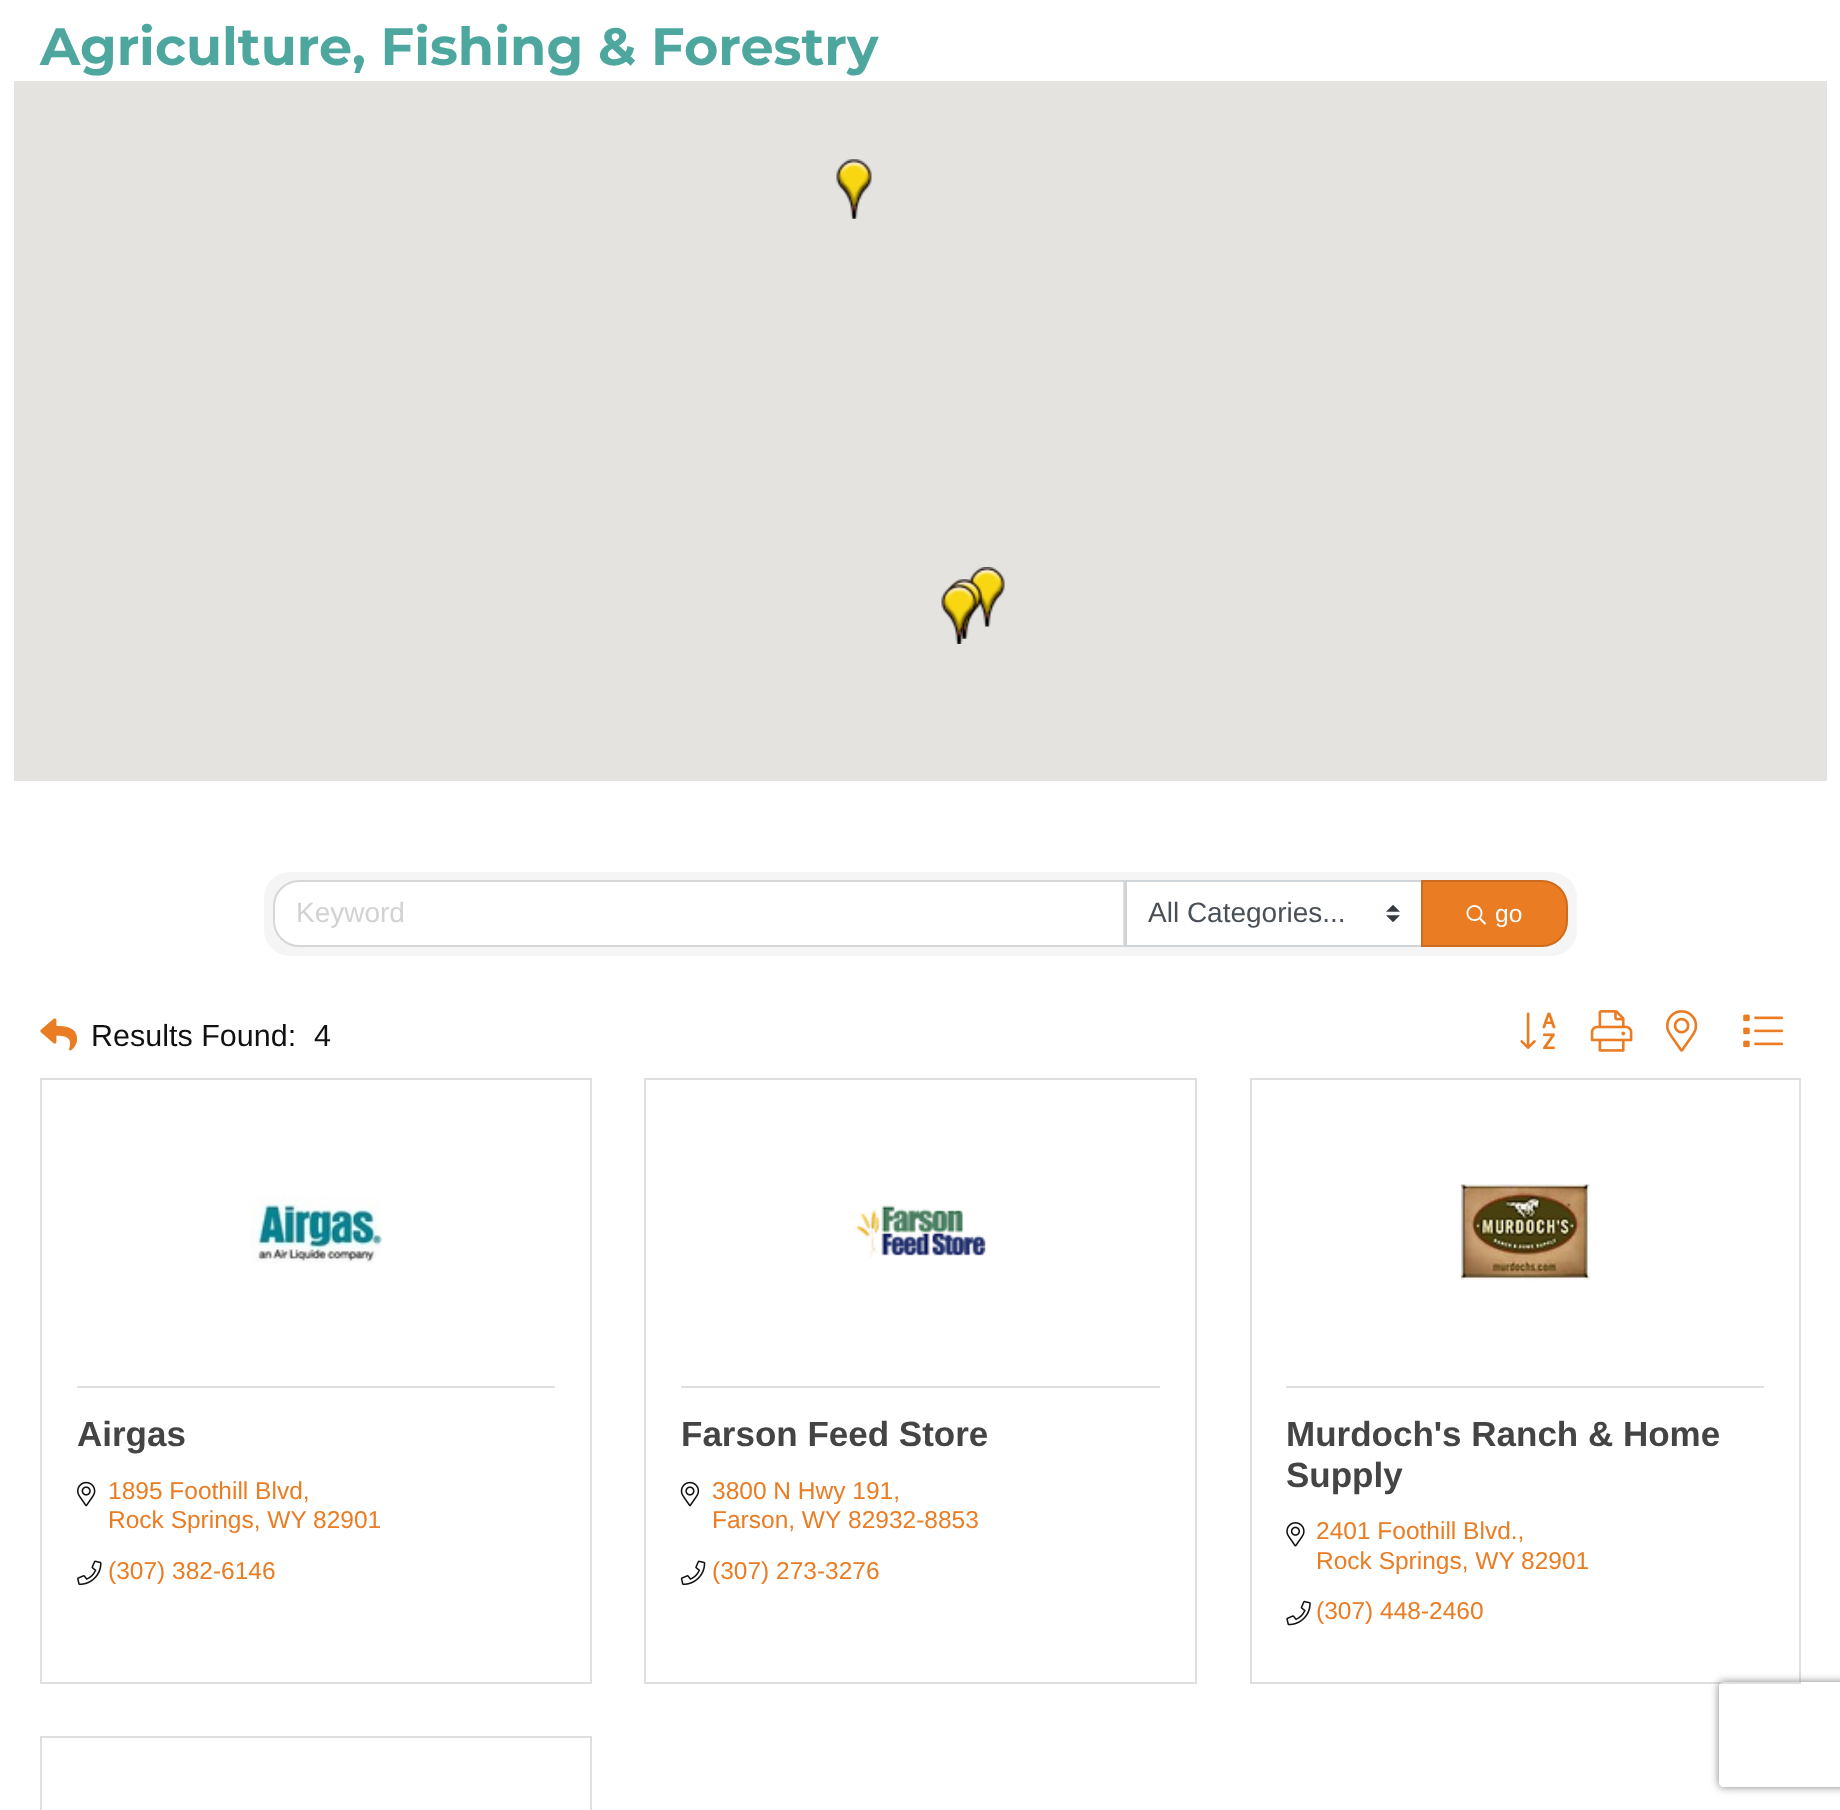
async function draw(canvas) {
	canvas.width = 1840;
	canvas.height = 1810;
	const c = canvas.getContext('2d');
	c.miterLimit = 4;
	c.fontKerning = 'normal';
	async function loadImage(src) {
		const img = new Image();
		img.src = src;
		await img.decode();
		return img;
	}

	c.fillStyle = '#fff';
	c.fillRect(0, 0, 1840, 1810);
	c.font = 'bold 52.5px Montserrat';
	c.fillStyle = '#4ea79f';
	c.fillText('Agriculture, Fishing & Forestry', 40, 65);
	c.fillStyle = '#e5e3df';
	c.fillRect(14, 81, 1813, 700);
	c.drawImage(await loadImage('img1.png'), 836, 159, 36, 60);
	c.drawImage(await loadImage('img3.png'), 969, 567, 36, 60);
	c.drawImage(await loadImage('img2.png'), 946, 579, 36, 60);
	c.drawImage(await loadImage('img4.png'), 941, 584, 36, 60);
	c.fillStyle = '#f5f5f5';
	c.beginPath();
	c.roundRect(264, 872, 1313, 84, 26);
	c.fill();
	c.fillStyle = '#fff';
	c.beginPath();
	c.roundRect(275, 882, 849, 63, [25, 0, 0, 25]);
	c.fill();
	c.beginPath();
	c.roundRect(274, 881, 850, 65, [25, 0, 0, 25]);
	c.strokeStyle = '#0000001f';
	c.lineWidth = 2;
	c.stroke();
	c.font = '28px Liberation Sans';
	c.fillStyle = '#d2d2d2';
	c.fillText('Keyword', 296, 922);
	c.fillStyle = '#fff';
	c.fillRect(1127, 882, 294, 63);
	c.drawImage(await loadImage('img5.png'), 1386, 905, 14, 17);
	c.strokeStyle = '#ced4da';
	c.strokeRect(1126, 881, 296, 65);
	c.fillStyle = '#495057';
	c.fillText('All Categories...', 1148, 922);
	c.fillStyle = '#ea7c23';
	c.beginPath();
	c.roundRect(1421, 880, 147, 67, [0, 26, 26, 0]);
	c.fill();
	c.beginPath();
	c.roundRect(1422, 881, 145, 65, [0, 25, 25, 0]);
	c.strokeStyle = '#0000001f';
	c.stroke();
	c.drawImage(await loadImage('img6.png'), 1466, 905, 21, 20);
	c.font = '24.5px Liberation Sans';
	c.fillStyle = '#fff';
	c.fillText('go', 1495, 922);
	c.drawImage(await loadImage('img7.png'), 40, 1018, 38, 33);
	c.font = '30.5px Liberation Sans';
	c.fillStyle = '#111';
	c.fillText('Results Found:', 91, 1046);
	c.fillText('4', 314, 1046);
	c.drawImage(await loadImage('img8.png'), 1520, 1012, 36, 38);
	c.drawImage(await loadImage('img9.png'), 1590, 1010, 43, 42);
	c.drawImage(await loadImage('img10.png'), 1666, 1010, 32, 42);
	c.drawImage(await loadImage('img11.png'), 1743, 1014, 40, 34);
	c.strokeStyle = '#dfdfdf';
	c.strokeRect(41, 1079, 550, 604);
	c.drawImage(await loadImage('img12.png'), 250, 1196, 132, 67);
	c.fillStyle = '#dfdfdf';
	c.fillRect(77, 1386, 478, 2);
	c.font = 'bold 35px Liberation Sans';
	c.fillStyle = '#444';
	c.fillText('Airgas', 77, 1446);
	c.drawImage(await loadImage('img13.png'), 77, 1481, 19, 26);
	c.font = '24.5px Liberation Sans';
	c.fillStyle = '#ea7c23';
	for (const [text, x, y] of [
		['1895 Foothill Blvd,', 108, 1499],
		['Rock Springs, WY', 108, 1528],
		['82901', 313, 1528],
	]) {
		c.fillText(text, x, y);
	}
	c.drawImage(await loadImage('img14.png'), 77, 1560, 25, 26);
	c.fillText('(307) 382-6146', 108, 1579);
	c.strokeRect(645, 1079, 551, 604);
	c.drawImage(await loadImage('img15.png'), 854, 1205, 132, 53);
	c.fillStyle = '#dfdfdf';
	c.fillRect(681, 1386, 479, 2);
	c.font = 'bold 35px Liberation Sans';
	c.fillStyle = '#444';
	c.fillText('Farson Feed Store', 681, 1446);
	c.drawImage(await loadImage('img16.png'), 680, 1481, 20, 26);
	c.font = '24.5px Liberation Sans';
	c.fillStyle = '#ea7c23';
	for (const [text, x, y] of [
		['3800 N Hwy 191,', 712, 1499],
		['Farson, WY', 712, 1528],
		['82932-8853', 848, 1528],
	]) {
		c.fillText(text, x, y);
	}
	c.drawImage(await loadImage('img17.png'), 680, 1560, 26, 26);
	c.fillText('(307) 273-3276', 712, 1579);
	c.strokeRect(1251, 1079, 549, 604);
	c.drawImage(await loadImage('img18.png'), 1459, 1183, 132, 98);
	c.fillStyle = '#dfdfdf';
	c.fillRect(1286, 1386, 478, 2);
	c.font = 'bold 35px Liberation Sans';
	c.fillStyle = '#444';
	c.fillText('Murdoch\'s Ranch & Home', 1286, 1446);
	c.fillText('Supply', 1286, 1487);
	c.drawImage(await loadImage('img19.png'), 1286, 1522, 19, 25);
	c.font = '24.5px Liberation Sans';
	c.fillStyle = '#ea7c23';
	for (const [text, x, y] of [
		['2401 Foothill Blvd.,', 1316, 1539],
		['Rock Springs, WY', 1316, 1569],
		['82901', 1521, 1569],
	]) {
		c.fillText(text, x, y);
	}
	c.drawImage(await loadImage('img20.png'), 1286, 1600, 25, 26);
	c.fillText('(307) 448-2460', 1316, 1619);
	c.strokeRect(41, 1737, 550, 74);
	c.save();
	c.beginPath();
	c.moveTo(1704, 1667);
	c.lineTo(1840, 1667);
	c.lineTo(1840, 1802);
	c.lineTo(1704, 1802);
	c.closePath();
	c.moveTo(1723, 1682);
	c.lineTo(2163, 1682);
	c.bezierCurveTo(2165, 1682, 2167, 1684, 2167, 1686);
	c.lineTo(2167, 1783);
	c.bezierCurveTo(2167, 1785, 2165, 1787, 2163, 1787);
	c.lineTo(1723, 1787);
	c.bezierCurveTo(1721, 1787, 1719, 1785, 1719, 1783);
	c.lineTo(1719, 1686);
	c.bezierCurveTo(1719, 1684, 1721, 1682, 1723, 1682);
	c.closePath();
	c.clip('evenodd');
	c.fillStyle = '#808080';
	c.filter = 'blur(4.5px)';
	c.beginPath();
	c.roundRect(1719, 1682, 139, 105, 4);
	c.fill();
	c.filter = 'none';
	c.restore();
}

draw(document.querySelector('canvas'));
